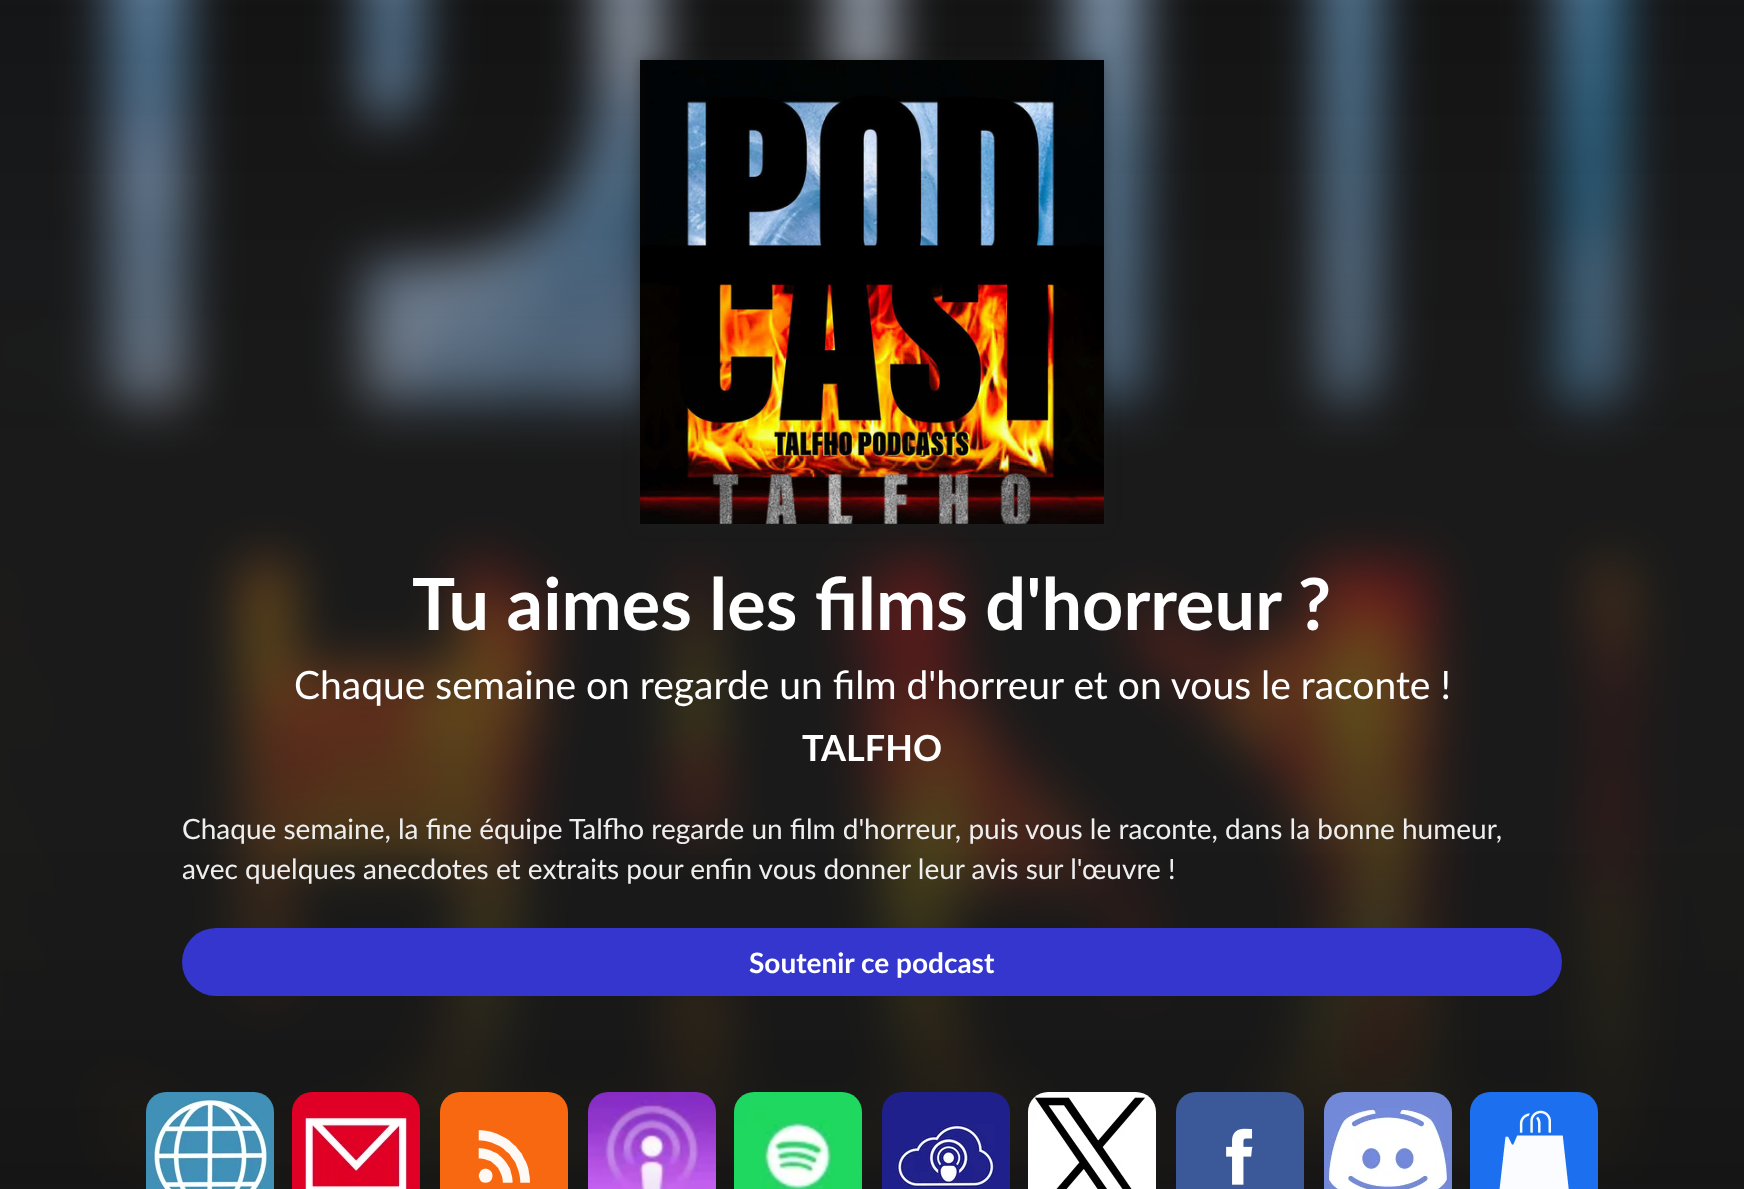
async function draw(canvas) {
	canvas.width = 1744;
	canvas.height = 1189;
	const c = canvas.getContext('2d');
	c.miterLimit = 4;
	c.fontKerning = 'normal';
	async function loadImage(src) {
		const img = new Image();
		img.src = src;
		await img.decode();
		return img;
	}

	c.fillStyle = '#fff';
	c.fillRect(0, 0, 1744, 1189);
	c.drawImage(await loadImage('img1.png'), 0, 0, 1744, 1189);
	c.fillStyle = '#1e1e1e73';
	c.filter = 'blur(8px)';
	c.beginPath();
	c.rect(640, 60, 464, 464);
	c.fill();
	c.filter = 'none';
	c.drawImage(await loadImage('img2.png'), 640, 60, 464, 464);
	c.font = 'bold 72px Lato';
	c.fillStyle = '#fff';
	c.fillText('Tu aimes les films d\'horreur ?', 412, 630);
	c.font = '39px Lato';
	c.fillText('Chaque semaine on regarde un film d\'horreur et on vous le raconte !', 294, 699);
	c.font = 'bold 36px Lato';
	c.fillText('TALFHO', 802, 761);
	c.font = '28px Lato';
	c.fillStyle = '#eee';
	c.fillText('Chaque semaine, la fine équipe Talfho regarde un film d\'horreur, puis vous le raconte, dans la bonne humeur,', 182, 839);
	c.fillText('avec quelques anecdotes et extraits pour enfin vous donner leur avis sur l\'œuvre !', 182, 879);
	c.fillStyle = '#3436cd';
	c.beginPath();
	c.roundRect(182, 928, 1380, 68, 34);
	c.fill();
	c.font = 'bold 28px Lato';
	c.fillStyle = '#fff';
	c.fillText('Soutenir ce podcast', 749, 973);
	c.drawImage(await loadImage('img3.png'), 146, 1092, 128, 97);
	c.drawImage(await loadImage('img4.png'), 292, 1092, 128, 97);
	c.drawImage(await loadImage('img5.png'), 440, 1092, 128, 97);
	c.drawImage(await loadImage('img6.png'), 588, 1092, 128, 97);
	c.drawImage(await loadImage('img7.png'), 734, 1092, 128, 97);
	c.drawImage(await loadImage('img8.png'), 882, 1092, 128, 97);
	c.drawImage(await loadImage('img9.png'), 1028, 1092, 128, 97);
	c.drawImage(await loadImage('img10.png'), 1176, 1092, 128, 97);
	c.drawImage(await loadImage('img11.png'), 1324, 1092, 128, 97);
	c.drawImage(await loadImage('img12.png'), 1470, 1092, 128, 97);
}

draw(document.querySelector('canvas'));
